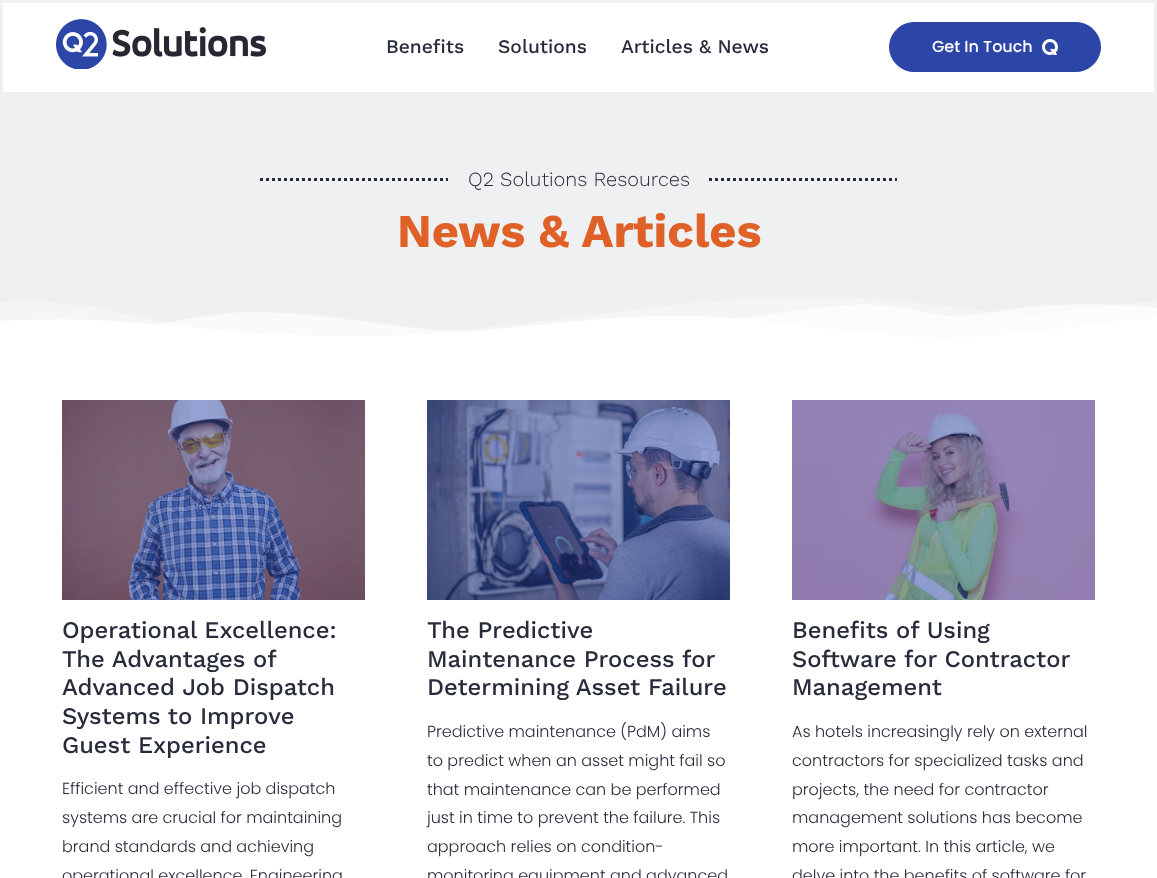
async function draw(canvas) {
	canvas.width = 1157;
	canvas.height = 878;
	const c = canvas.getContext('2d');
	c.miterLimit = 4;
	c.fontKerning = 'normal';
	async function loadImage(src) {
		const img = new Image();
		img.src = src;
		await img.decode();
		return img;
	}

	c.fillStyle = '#fff';
	c.fillRect(0, 0, 1157, 878);
	c.strokeStyle = '#eff0f1';
	c.lineWidth = 3;
	c.strokeRect(1.5, 1.5, 1154, 92);
	c.drawImage(await loadImage('img1.png'), 56, 19, 210, 50);
	c.font = '500 19.25px Work Sans';
	c.fillStyle = '#282b3a';
	for (const [text, x, y] of [
		['Benefits', 386, 53],
		['Solutions', 498, 53],
		['Articles & News', 621, 53],
	]) {
		c.fillText(text, x, y);
	}
	c.fillStyle = '#2b46a7';
	c.beginPath();
	c.roundRect(889.5, 22.5, 211, 49, 24.5);
	c.fill();
	c.strokeStyle = '#2b46a7';
	c.lineWidth = 1;
	c.stroke();
	c.font = '500 16px Poppins';
	c.fillStyle = '#fff';
	c.fillText('Get In Touch', 932, 52);
	c.drawImage(await loadImage('img2.png'), 1042, 39, 16, 16);
	c.fillStyle = '#eff0f1';
	c.fillRect(0, 95, 1157, 243);
	c.beginPath();
	c.moveTo(260, 179.5);
	c.lineTo(448, 179.5);
	c.strokeStyle = '#282b3a';
	c.lineWidth = 3;
	c.setLineDash([3, 3]);
	c.stroke();
	c.font = '300 20px Work Sans';
	c.fillStyle = '#282b3a';
	c.fillText('Q2 Solutions Resources', 468, 186);
	c.beginPath();
	c.moveTo(709, 179.5);
	c.lineTo(897, 179.5);
	c.stroke();
	c.font = 'bold 47px Work Sans';
	c.fillStyle = '#df6127';
	c.fillText('News & Articles', 397, 247);
	c.drawImage(await loadImage('img3.png'), 0, 298, 1157, 44);
	c.drawImage(await loadImage('img4.png'), 62, 400, 303, 200);
	c.font = '500 23.75px Work Sans';
	c.fillStyle = '#282b3a';
	for (const [text, x, y] of [
		['Operational Excellence:', 62, 638],
		['The Advantages of', 62, 667],
		['Advanced Job Dispatch', 62, 695],
		['Systems to Improve', 62, 724],
		['Guest Experience', 62, 753],
	]) {
		c.fillText(text, x, y);
	}
	c.font = '300 16px Poppins';
	for (const [text, x, y] of [
		['Efficient and effective job dispatch', 62, 794],
		['systems are crucial for maintaining', 62, 823],
		['brand standards and achieving', 62, 852],
		['operational excellence. Engineering', 62, 881],
	]) {
		c.fillText(text, x, y);
	}
	c.drawImage(await loadImage('img5.png'), 427, 400, 303, 200);
	c.font = '500 23.75px Work Sans';
	for (const [text, x, y] of [
		['The Predictive', 427, 638],
		['Maintenance Process for', 427, 667],
		['Determining Asset Failure', 427, 695],
	]) {
		c.fillText(text, x, y);
	}
	c.font = '300 16px Poppins';
	for (const [text, x, y] of [
		['Predictive maintenance (PdM) aims', 427, 737],
		['to predict when an asset might fail so', 427, 766],
		['that maintenance can be performed', 427, 795],
		['just in time to prevent the failure. This', 427, 823],
		['approach relies on condition-', 427, 852],
		['monitoring equipment and advanced', 427, 881],
	]) {
		c.fillText(text, x, y);
	}
	c.drawImage(await loadImage('img6.png'), 792, 400, 303, 200);
	c.font = '500 23.75px Work Sans';
	for (const [text, x, y] of [
		['Benefits of Using', 792, 638],
		['Software for Contractor', 792, 667],
		['Management', 792, 695],
	]) {
		c.fillText(text, x, y);
	}
	c.font = '300 16px Poppins';
	for (const [text, x, y] of [
		['As hotels increasingly rely on external', 792, 737],
		['contractors for specialized tasks and', 792, 766],
		['projects, the need for contractor', 792, 795],
		['management solutions has become', 792, 823],
		['more important. In this article, we', 792, 852],
		['delve into the benefits of software for', 792, 881],
	]) {
		c.fillText(text, x, y);
	}
}

draw(document.querySelector('canvas'));
